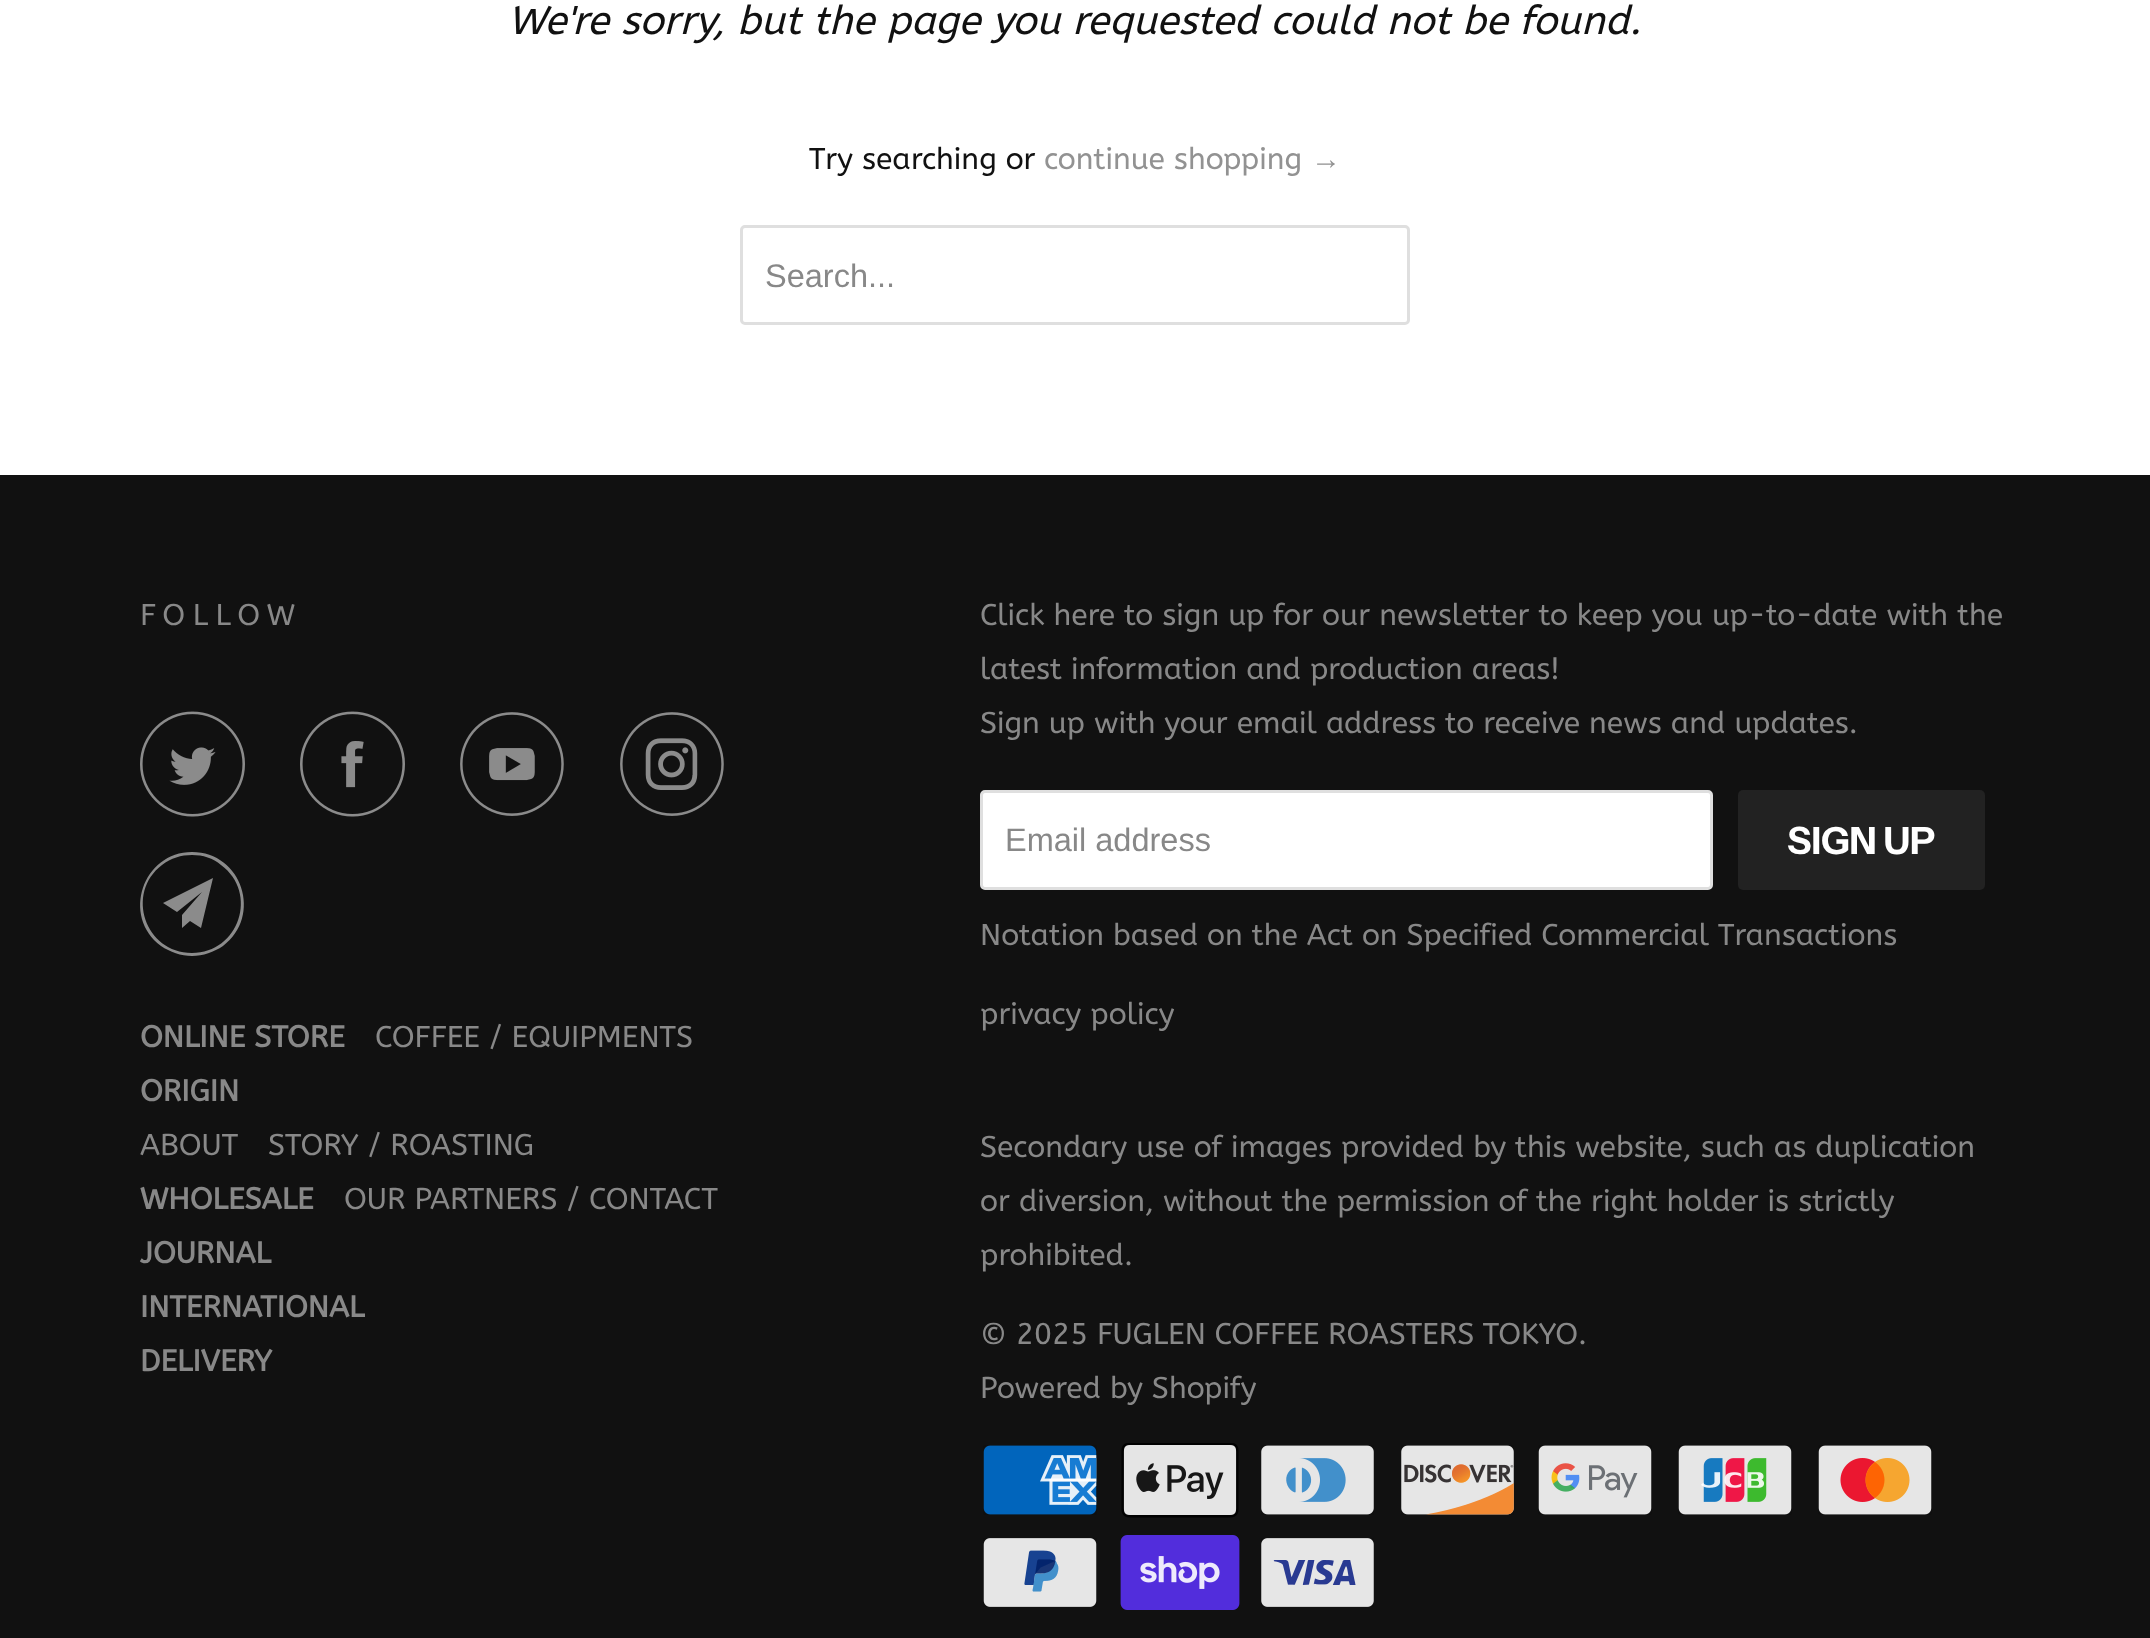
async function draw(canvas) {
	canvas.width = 2150;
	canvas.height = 1638;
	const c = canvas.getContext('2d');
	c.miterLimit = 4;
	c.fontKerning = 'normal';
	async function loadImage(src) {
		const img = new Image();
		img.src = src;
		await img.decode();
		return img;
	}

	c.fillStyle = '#fff';
	c.fillRect(0, 0, 2150, 1638);
	c.font = 'italic 40px ABeeZee';
	c.fillStyle = '#111';
	c.fillText('We\'re sorry, but the page you requested could not be found.', 508, 34);
	c.font = '30px ABeeZee';
	c.fillText('Try searching or', 809, 169);
	c.fillStyle = '#929292';
	c.fillText('continue shopping', 1044, 169);
	c.font = '30px Liberation Serif';
	c.fillText('→', 1311, 169);
	c.beginPath();
	c.roundRect(741.5, 226.5, 667, 97, 3.5);
	c.strokeStyle = '#dfdfdf';
	c.lineWidth = 3;
	c.stroke();
	c.font = '32.5px Liberation Sans';
	c.fillStyle = '#888';
	c.fillText('Search...', 765, 287);
	c.fillStyle = '#111';
	c.fillRect(0, 475, 2150, 1163);
	c.letterSpacing = '7.5px';
	c.font = '30px ABeeZee';
	c.fillStyle = '#888';
	c.fillText('FOLLOW', 140, 625);
	c.drawImage(await loadImage('img1.png'), 140, 711, 105, 106);
	c.drawImage(await loadImage('img2.png'), 300, 711, 105, 106);
	c.drawImage(await loadImage('img3.png'), 460, 712, 104, 104);
	c.drawImage(await loadImage('img4.png'), 620, 712, 104, 104);
	c.fillStyle = '#8b8b8b';
	c.beginPath();
	c.moveTo(201, 928);
	c.lineTo(190, 921);
	c.lineTo(182, 928);
	c.lineTo(182, 915);
	c.lineTo(202, 892);
	c.lineTo(177, 912);
	c.lineTo(163, 903);
	c.lineTo(213, 878);
	c.closePath();
	c.moveTo(192, 855);
	c.bezierCurveTo(181, 855, 171, 858, 162, 865);
	c.bezierCurveTo(125, 893, 145, 953, 192, 953);
	c.bezierCurveTo(239, 953, 259, 893, 221, 865);
	c.bezierCurveTo(213, 858, 203, 855, 192, 855);
	c.closePath();
	c.moveTo(192, 956);
	c.bezierCurveTo(181, 956, 170, 952, 161, 946);
	c.bezierCurveTo(121, 916, 143, 852, 192, 852);
	c.bezierCurveTo(242, 852, 263, 916, 223, 946);
	c.bezierCurveTo(214, 952, 203, 956, 192, 956);
	c.closePath();
	c.fill();
	c.letterSpacing = '0px';
	c.font = 'bold 30px ABeeZee';
	c.fillStyle = '#888';
	c.fillText('ONLINE STORE', 140, 1047);
	c.font = '30px ABeeZee';
	c.fillText('COFFEE / EQUIPMENTS', 375, 1047);
	c.font = 'bold 30px ABeeZee';
	c.fillText('ORIGIN', 140, 1101);
	c.font = '30px ABeeZee';
	c.fillText('ABOUT', 140, 1155);
	c.fillText('STORY / ROASTING', 268, 1155);
	c.font = 'bold 30px ABeeZee';
	c.fillText('WHOLESALE', 140, 1209);
	c.font = '30px ABeeZee';
	c.fillText('OUR PARTNERS / CONTACT', 344, 1209);
	c.font = 'bold 30px ABeeZee';
	for (const [text, x, y] of [
		['JOURNAL', 140, 1263],
		['INTERNATIONAL', 140, 1317],
		['DELIVERY', 140, 1371],
	]) {
		c.fillText(text, x, y);
	}
	c.font = '30px ABeeZee';
	for (const [text, x, y] of [
		['Click here to sign up for our newsletter to keep you up-to-date with the', 980, 625],
		['latest information and production areas!', 980, 679],
		['Sign up with your email address to receive news and updates.', 980, 733],
	]) {
		c.fillText(text, x, y);
	}
	c.fillStyle = '#fff';
	c.beginPath();
	c.roundRect(981.5, 791.5, 730, 97, 3.5);
	c.fill();
	c.stroke();
	c.font = '32.5px Liberation Sans';
	c.fillStyle = '#888';
	c.fillText('Email address', 1005, 851);
	c.fillStyle = '#222';
	c.beginPath();
	c.roundRect(1738, 790, 247, 100, 5);
	c.fill();
	c.font = 'bold 37.5px Instrument Sans';
	c.fillStyle = '#fff';
	c.fillText('SIGN UP', 1787, 854);
	c.font = '30px ABeeZee';
	c.fillStyle = '#888';
	for (const [text, x, y] of [
		['Notation based on the Act on Specified Commercial Transactions', 980, 945],
		['privacy policy', 980, 1024],
		['Secondary use of images provided by this website, such as duplication', 980, 1157],
		['or diversion, without the permission of the right holder is strictly', 980, 1211],
		['prohibited.', 980, 1265],
		['© 2025', 980, 1344],
	]) {
		c.fillText(text, x, y);
	}
	c.wordSpacing = '-0.5px';
	c.fillText('FUGLEN COFFEE ROASTERS TOKYO', 1097, 1344);
	c.wordSpacing = '0px';
	c.fillText('.', 1578, 1344);
	c.fillText('Powered by Shopify', 980, 1398);
	c.drawImage(await loadImage('img5.png'), 983, 1445, 114, 70);
	c.drawImage(await loadImage('img6.png'), 1121, 1443, 118, 75);
	c.drawImage(await loadImage('img7.png'), 1261, 1445, 113, 70);
	c.drawImage(await loadImage('img8.png'), 1401, 1445, 113, 70);
	c.drawImage(await loadImage('img9.png'), 1538, 1445, 114, 70);
	c.drawImage(await loadImage('img10.png'), 1678, 1445, 114, 70);
	c.drawImage(await loadImage('img11.png'), 1818, 1445, 114, 70);
	c.drawImage(await loadImage('img12.png'), 983, 1538, 114, 69);
	c.drawImage(await loadImage('img13.png'), 1120, 1535, 120, 75);
	c.drawImage(await loadImage('img14.png'), 1261, 1538, 113, 69);
}

draw(document.querySelector('canvas'));
